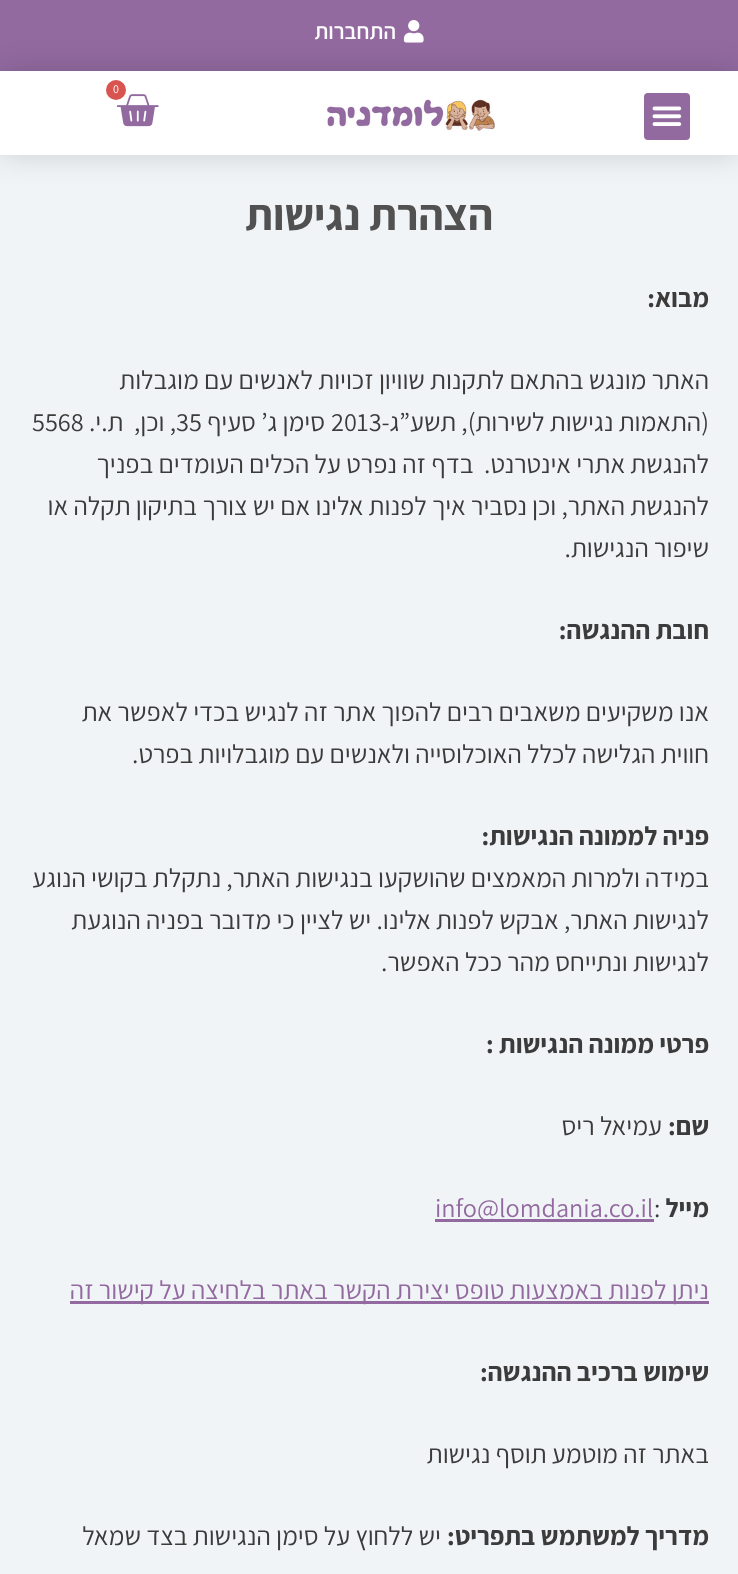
async function draw(canvas) {
	canvas.width = 738;
	canvas.height = 1574;
	const c = canvas.getContext('2d');
	c.miterLimit = 4;
	c.fontKerning = 'normal';
	async function loadImage(src) {
		const img = new Image();
		img.src = src;
		await img.decode();
		return img;
	}

	c.fillStyle = '#f1f4f6';
	c.fillRect(0, 0, 738, 1574);
	c.fillStyle = '#926aa0';
	c.fillRect(0, 0, 738, 71);
	c.drawImage(await loadImage('img1.png'), 403, 20, 21, 23);
	c.direction = 'rtl';
	c.font = '200 22.5px Assistant';
	c.fillStyle = '#fff';
	c.fillText('התחברות', 396, 39);
	c.fillStyle = '#00000026';
	c.filter = 'blur(15px)';
	c.beginPath();
	c.rect(0, 71, 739, 84);
	c.fill();
	c.filter = 'none';
	c.fillStyle = '#fff';
	c.fillRect(0, 71, 738, 84);
	c.drawImage(await loadImage('img2.png'), 116, 94, 43, 33);
	c.fillStyle = '#d9534f';
	c.beginPath();
	c.arc(116, 90, 10, 0, 2 * Math.PI);
	c.fill();
	c.direction = 'ltr';
	c.font = '200 12px "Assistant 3"';
	c.fillStyle = '#fff';
	c.fillText('0', 113, 93);
	c.fillStyle = '#926aa0';
	c.beginPath();
	c.roundRect(644, 93, 46, 47, 4);
	c.fill();
	c.drawImage(await loadImage('img3.png'), 652, 106, 30, 20);
	c.drawImage(await loadImage('img4.png'), 327, 99, 168, 32);
	c.direction = 'rtl';
	c.font = '200 43.75px "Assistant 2"';
	c.fillStyle = '#515151';
	c.fillText('הצהרת נגישות', 493, 230);
	c.font = '200 26.25px "Assistant 2"';
	c.fillStyle = '#3b3b3b';
	c.fillText('מבוא:', 709, 307);
	c.font = '200 26.25px "Assistant 3"';
	c.fillText('האתר מונגש בהתאם לתקנות שוויון זכויות לאנשים עם מוגבלות', 709, 389);
	c.fillText('(התאמות נגישות לשירות), תשע”ג-', 709, 431);
	c.direction = 'ltr';
	c.fillText('2013', 331, 431);
	c.direction = 'rtl';
	c.fillText('סימן ג’ סעיף', 325, 431);
	c.direction = 'ltr';
	c.fillText('35', 176, 431);
	c.direction = 'rtl';
	c.fillText(', וכן,  ת.י.', 176, 431);
	c.direction = 'ltr';
	c.fillText('5568', 32, 431);
	c.direction = 'rtl';
	for (const [text, x, y] of [
		['להנגשת אתרי אינטרנט.  בדף זה נפרט על הכלים העומדים בפניך', 709, 473],
		['להנגשת האתר, וכן נסביר איך לפנות אלינו אם יש צורך בתיקון תקלה או', 709, 515],
		['שיפור הנגישות.', 709, 557],
	]) {
		c.fillText(text, x, y);
	}
	c.font = '200 26.25px "Assistant 2"';
	c.fillText('חובת ההנגשה:', 709, 639);
	c.font = '200 26.25px "Assistant 3"';
	c.fillText('אנו משקיעים משאבים רבים להפוך אתר זה לנגיש בכדי לאפשר את', 709, 721);
	c.fillText('חווית הגלישה לכלל האוכלוסייה ולאנשים עם מוגבלויות בפרט.', 709, 763);
	c.font = '200 26.25px "Assistant 2"';
	c.fillText('פניה לממונה הנגישות:', 709, 845);
	c.font = '200 26.25px "Assistant 3"';
	for (const [text, x, y] of [
		['במידה ולמרות המאמצים שהושקעו בנגישות האתר, נתקלת בקושי הנוגע', 709, 887],
		['לנגישות האתר, אבקש לפנות אלינו. יש לציין כי מדובר בפניה הנוגעת', 709, 929],
		['לנגישות ונתייחס מהר ככל האפשר.', 709, 971],
	]) {
		c.fillText(text, x, y);
	}
	c.font = '200 26.25px "Assistant 2"';
	c.fillText('פרטי ממונה הנגישות :', 709, 1053);
	c.fillText('שם:', 709, 1135);
	c.font = '200 26.25px "Assistant 3"';
	c.fillText('עמיאל ריס', 662, 1135);
	c.font = '200 26.25px "Assistant 2"';
	c.fillText('מייל', 709, 1217);
	c.direction = 'ltr';
	c.font = '200 26.25px "Assistant 3"';
	c.fillText(':', 654, 1217);
	c.fillStyle = '#926aa0';
	c.fillRect(435, 1219, 219, 3);
	c.fillText('info@lomdania.co.il', 435, 1217);
	c.fillRect(70, 1301, 639, 3);
	c.direction = 'rtl';
	c.fillText('ניתן לפנות באמצעות טופס יצירת הקשר באתר בלחיצה על קישור זה', 709, 1299);
	c.font = '200 26.25px "Assistant 2"';
	c.fillStyle = '#3b3b3b';
	c.fillText('שימוש ברכיב ההנגשה:', 709, 1381);
	c.font = '200 26.25px "Assistant 3"';
	c.fillText('באתר זה מוטמע תוסף נגישות', 709, 1463);
	c.font = '200 26.25px "Assistant 2"';
	c.fillText('מדריך למשתמש בתפריט:', 709, 1545);
	c.font = '200 26.25px "Assistant 3"';
	c.fillText('יש ללחוץ על סימן הנגישות בצד שמאל', 441, 1545);
}

draw(document.querySelector('canvas'));
